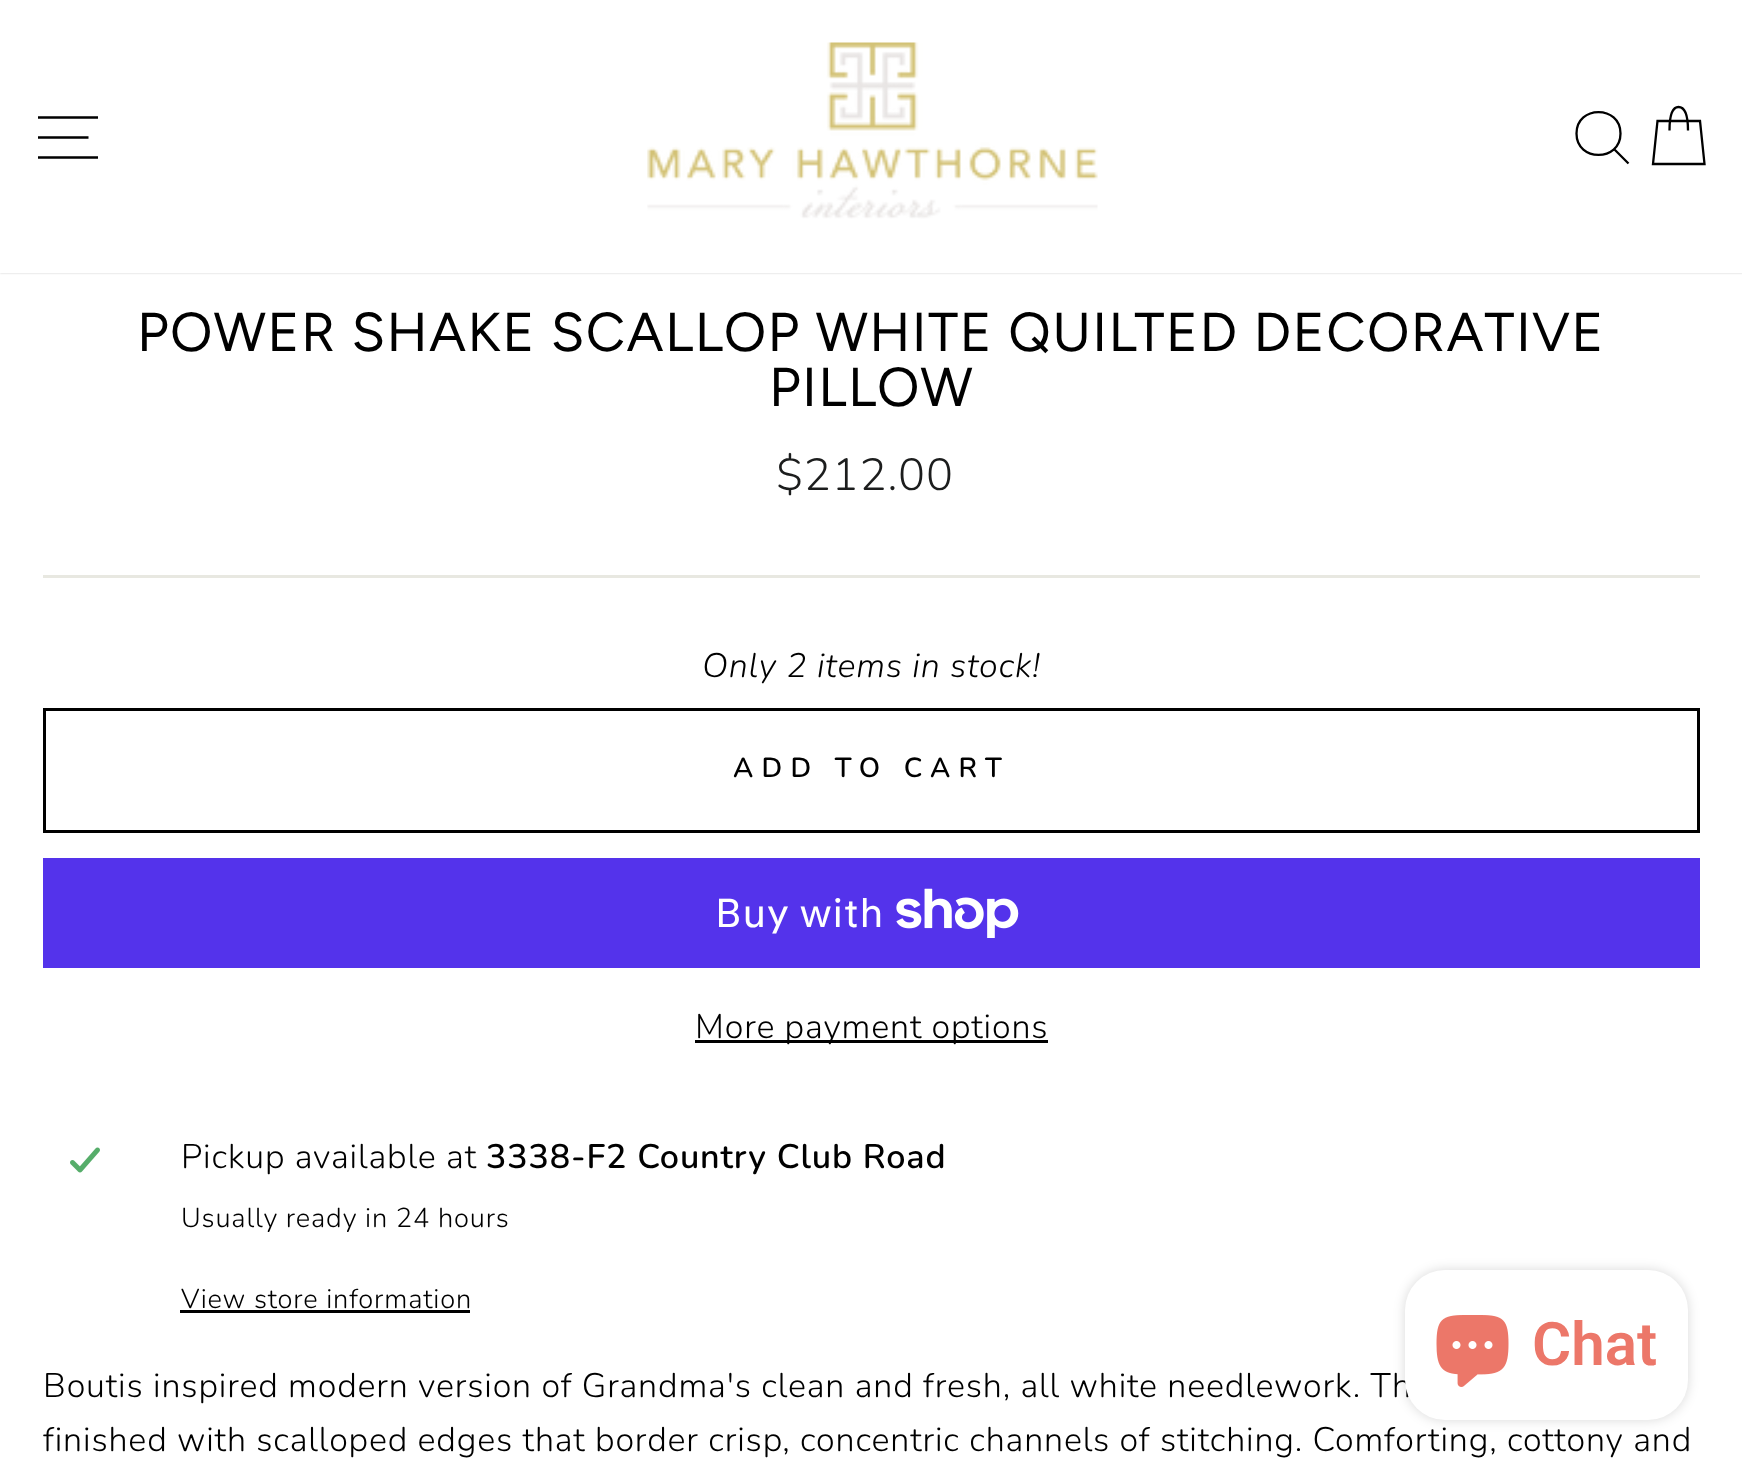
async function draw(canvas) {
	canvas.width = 1742;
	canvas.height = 1471;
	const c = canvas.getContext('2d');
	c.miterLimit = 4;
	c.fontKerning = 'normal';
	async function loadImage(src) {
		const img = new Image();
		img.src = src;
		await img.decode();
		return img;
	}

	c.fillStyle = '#fff';
	c.fillRect(0, 0, 1742, 1471);
	c.fillStyle = '#00000033';
	c.filter = 'blur(1px)';
	c.beginPath();
	c.rect(0, 0, 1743, 273);
	c.fill();
	c.filter = 'none';
	c.fillStyle = '#fff';
	c.fillRect(0, 0, 1742, 273);
	c.beginPath();
	c.moveTo(38, 117.5);
	c.lineTo(98, 117.5);
	c.moveTo(38, 137.5);
	c.lineTo(88.5, 137.5);
	c.moveTo(38, 157.5);
	c.lineTo(98, 157.5);
	c.strokeStyle = '#000';
	c.lineWidth = 2.3;
	c.stroke();
	c.drawImage(await loadImage('img1.png'), 647, 42, 451, 177);
	c.beginPath();
	c.moveTo(1620.5, 133.5);
	c.bezierCurveTo(1620.5, 162, 1576.5, 162, 1576.5, 133.5);
	c.bezierCurveTo(1576.5, 105, 1620.5, 105, 1620.5, 133.5);
	c.closePath();
	c.moveTo(1628.5, 163.5);
	c.lineTo(1614, 149);
	c.stroke();
	c.beginPath();
	c.moveTo(1669.5, 130.5);
	c.bezierCurveTo(1669.5, 112, 1673.5, 107, 1678.5, 107);
	c.bezierCurveTo(1684, 107, 1688, 112, 1688, 130.5);
	c.moveTo(1657.5, 121);
	c.lineTo(1700, 121);
	c.lineTo(1704.5, 164);
	c.lineTo(1653, 164);
	c.closePath();
	c.stroke();
	c.letterSpacing = '1.35px';
	c.font = '54.75px Figtree';
	c.fillStyle = '#000';
	c.fillText('POWER SHAKE SCALLOP WHITE QUILTED DECORATIVE', 137, 351);
	c.fillText('PILLOW', 769, 406);
	c.letterSpacing = '0.85px';
	c.font = '300 45px Nunito';
	c.fillStyle = '#1c1d1d';
	c.fillText('$212.00', 776, 490);
	c.fillStyle = '#e8e8e1';
	c.fillRect(43, 575, 1657, 3);
	c.font = 'italic 300 34px Nunito';
	c.fillStyle = '#000';
	c.fillText('Only 2 items in stock!', 702, 677);
	c.lineWidth = 3;
	c.strokeRect(44.5, 709.5, 1654, 122);
	c.letterSpacing = '8.25px';
	c.font = '600 27.5px Nunito';
	c.fillText('ADD TO CART', 733, 777);
	c.fillStyle = '#5433eb';
	c.fillRect(43, 858, 1657, 110);
	c.letterSpacing = '0.85px';
	c.font = '40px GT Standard';
	c.fillStyle = '#fff';
	c.fillText('Buy with', 715, 927);
	c.drawImage(await loadImage('img2.png'), 896, 888, 123, 50);
	c.fillStyle = '#000';
	c.fillRect(695, 1040, 353, 3);
	c.font = '300 34px Nunito';
	c.fillText('More payment options', 695, 1038);
	c.drawImage(await loadImage('img3.png'), 70, 1147, 30, 26);
	c.fillText('Pickup available at', 181, 1168);
	c.font = '600 34px Nunito';
	c.fillText('3338-F2 Country Club Road', 486, 1168);
	c.font = '300 27.25px Nunito';
	c.fillText('Usually ready in 24 hours', 181, 1227);
	c.fillText('View store information', 181, 1308);
	c.fillRect(180, 1310, 290, 3);
	c.font = '300 34px Nunito';
	c.fillText('Boutis inspired modern version of Grandma\'s clean and fresh, all white needlework. Th', 43, 1397);
	c.fillText('finished with scalloped edges that border crisp, concentric channels of stitching. Comforting, cottony and', 43, 1451);
	c.fillStyle = '#00000026';
	c.filter = 'blur(6px)';
	c.beginPath();
	c.roundRect(1405, 1270, 283, 150, 40);
	c.fill();
	c.filter = 'none';
	c.fillStyle = '#fff';
	c.beginPath();
	c.roundRect(1405, 1270, 283, 150, 40);
	c.fill();
	c.drawImage(await loadImage('img4.png'), 1436, 1315, 73, 72);
	c.letterSpacing = '0px';
	c.font = '600 60px Roboto';
	c.fillStyle = '#ec7769';
	c.fillText('Chat', 1532, 1365);
}

draw(document.querySelector('canvas'));
